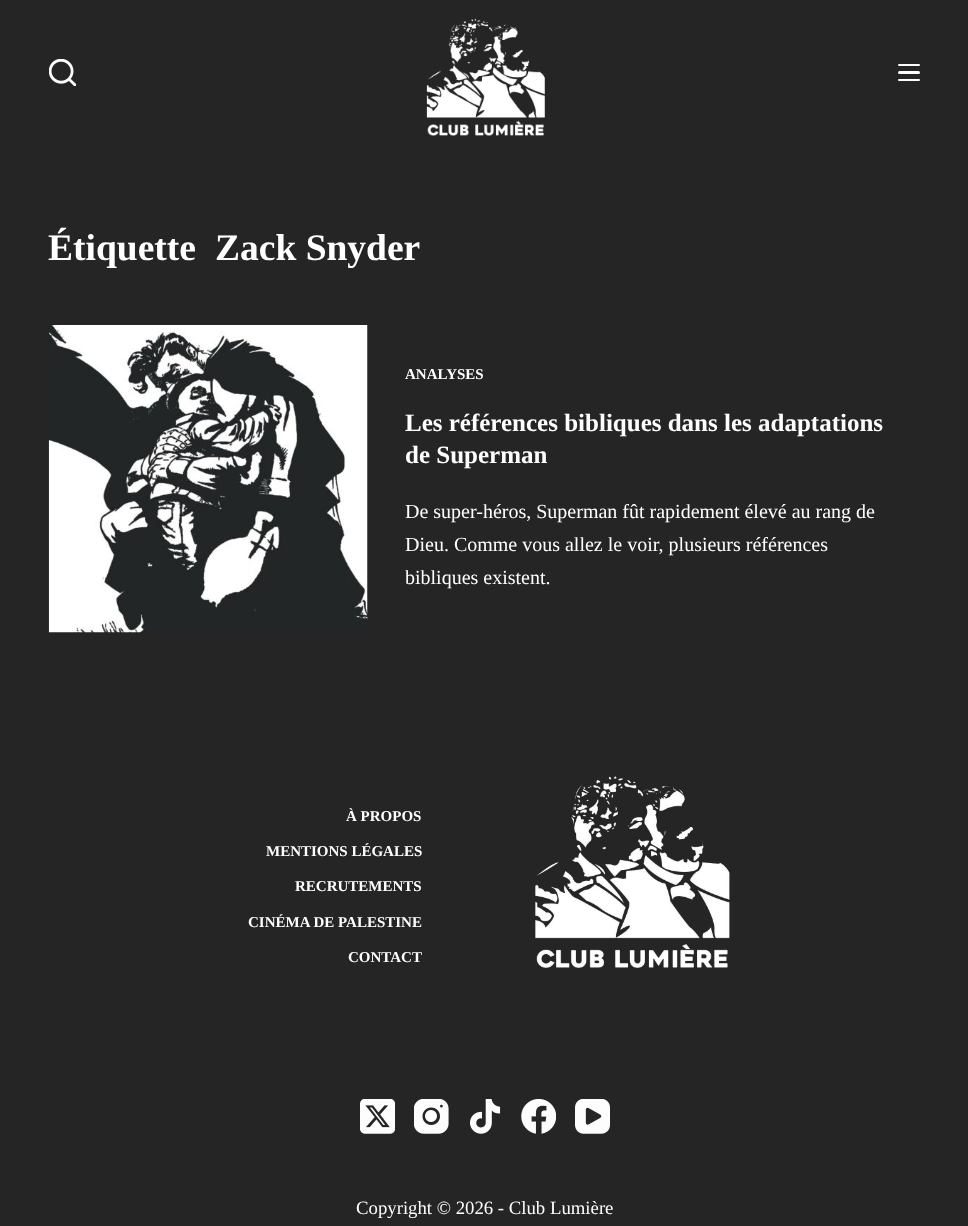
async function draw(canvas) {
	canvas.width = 968;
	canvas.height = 1226;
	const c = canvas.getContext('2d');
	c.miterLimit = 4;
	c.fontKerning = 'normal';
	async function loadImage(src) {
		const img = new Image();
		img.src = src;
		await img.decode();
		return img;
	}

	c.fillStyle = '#252525';
	c.fillRect(0, 0, 968, 1226);
	c.drawImage(await loadImage('img1.png'), 49, 59, 27, 27);
	c.drawImage(await loadImage('img2.png'), 426, 18, 119, 118);
	c.fillStyle = '#fdfdfd';
	c.beginPath();
	c.roundRect(898, 64, 22, 2, 1);
	c.fill();
	c.beginPath();
	c.roundRect(898, 71, 22, 3, 1.5);
	c.fill();
	c.beginPath();
	c.roundRect(898, 79, 22, 2, 1);
	c.fill();
	c.font = 'bold 37.5px Liberation Serif';
	c.fillStyle = '#fff';
	c.fillText('Étiquette', 48, 260);
	c.fillText('Zack Snyder', 215, 260);
	c.drawImage(await loadImage('img3.png'), 48, 325, 320, 308);
	c.font = 'bold 15px Liberation Serif';
	c.fillText('ANALYSES', 405, 379);
	c.font = 'bold 25px Liberation Serif';
	c.fillText('Les références bibliques dans les adaptations', 405, 431);
	c.fillText('de Superman', 405, 463);
	c.font = '20px Liberation Serif';
	for (const [text, x, y] of [
		['De super-héros, Superman fût rapidement élevé au rang de', 405, 518],
		['Dieu. Comme vous allez le voir, plusieurs références', 405, 551],
		['bibliques existent.', 405, 584],
	]) {
		c.fillText(text, x, y);
	}
	c.font = 'bold 15px Liberation Serif';
	for (const [text, x, y] of [
		['À PROPOS', 346, 821],
		['MENTIONS LÉGALES', 266, 856],
		['RECRUTEMENTS', 295, 891],
		['CINÉMA DE PALESTINE', 248, 927],
		['CONTACT', 348, 962],
	]) {
		c.fillText(text, x, y);
	}
	c.drawImage(await loadImage('img4.png'), 535, 776, 195, 192);
	c.drawImage(await loadImage('img5.png'), 360, 1099, 35, 35);
	c.drawImage(await loadImage('img6.png'), 414, 1099, 35, 35);
	c.drawImage(await loadImage('img7.png'), 469, 1099, 32, 35);
	c.drawImage(await loadImage('img8.png'), 521, 1099, 35, 35);
	c.drawImage(await loadImage('img9.png'), 575, 1099, 35, 35);
	c.font = '18.75px Liberation Serif';
	c.fillText('Copyright © 2026 - Club Lumière', 356, 1214);
}

draw(document.querySelector('canvas'));
